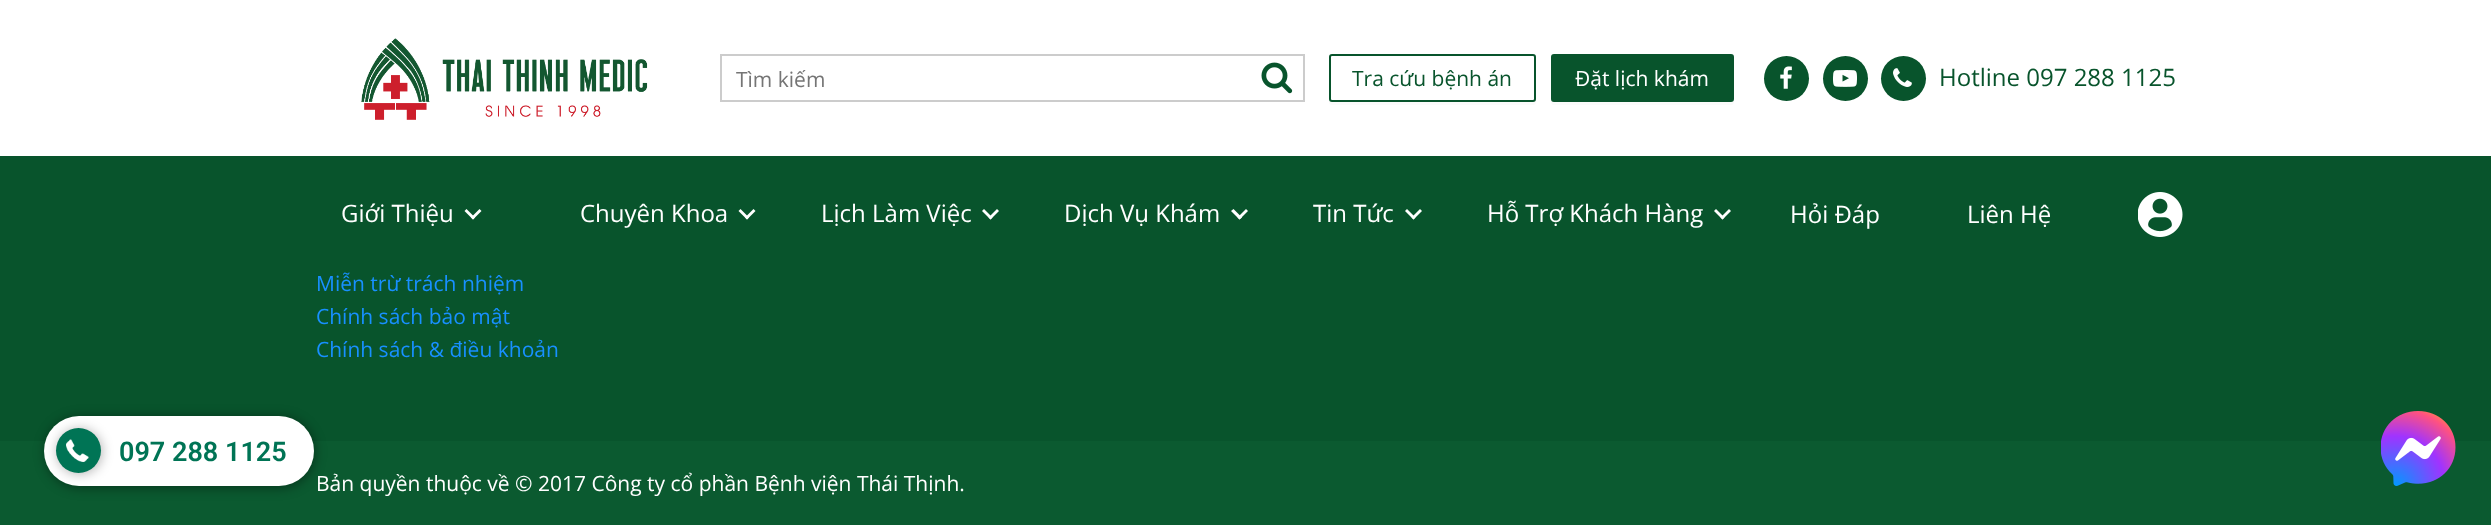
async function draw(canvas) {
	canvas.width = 2491;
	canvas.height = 525;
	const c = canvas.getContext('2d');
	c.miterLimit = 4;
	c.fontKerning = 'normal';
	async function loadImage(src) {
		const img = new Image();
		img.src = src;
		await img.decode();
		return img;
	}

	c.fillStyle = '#08542c';
	c.fillRect(0, 0, 2491, 525);
	c.fillStyle = '#0b5a30';
	c.fillRect(0, 441, 2491, 84);
	c.fillStyle = '#00000066';
	c.filter = 'blur(6px)';
	c.beginPath();
	c.roundRect(45, 417, 270, 71, 35.5);
	c.fill();
	c.filter = 'none';
	c.fillStyle = '#fff';
	c.beginPath();
	c.roundRect(44, 416, 270, 70, 35);
	c.fill();
	c.fillStyle = '#0000004d';
	c.filter = 'blur(6px)';
	c.beginPath();
	c.roundRect(57, 429, 45, 45, 22.5);
	c.fill();
	c.filter = 'none';
	c.fillStyle = '#007455';
	c.beginPath();
	c.arc(78.5, 450.5, 22.5, 0, 2 * Math.PI);
	c.fill();
	c.drawImage(await loadImage('img1.png'), 66, 439, 23, 23);
	c.font = '600 27px Roboto';
	c.fillText('097 288 1125', 119, 461);
	c.fillStyle = '#fff';
	c.fillRect(0, 0, 2491, 156);
	c.drawImage(await loadImage('img2.png'), 361, 38, 287, 82);
	c.strokeStyle = '#ccc';
	c.lineWidth = 2;
	c.strokeRect(721, 55, 583, 46);
	c.font = '21px Open Sans';
	c.fillStyle = '#757575';
	c.fillText('Tìm kiếm', 736, 87);
	c.drawImage(await loadImage('img3.png'), 1261, 62, 32, 32);
	c.fillStyle = '#fbfbfb';
	c.beginPath();
	c.moveTo(1329, 99);
	c.lineTo(1329, 102);
	c.bezierCurveTo(1329, 104, 1330, 105, 1332, 105);
	c.lineTo(1533, 105);
	c.bezierCurveTo(1535, 105, 1536, 104, 1536, 102);
	c.lineTo(1536, 99);
	c.bezierCurveTo(1536, 101, 1535, 102, 1533, 102);
	c.lineTo(1332, 102);
	c.lineTo(1330, 101);
	c.closePath();
	c.fill();
	c.beginPath();
	c.roundRect(1330, 55, 205, 46, 2);
	c.strokeStyle = '#08542c';
	c.stroke();
	c.fillStyle = '#08542c';
	c.fillText('Tra cứu bệnh án', 1352, 86);
	c.fillStyle = '#fbfbfb';
	c.beginPath();
	c.moveTo(1551, 99);
	c.lineTo(1551, 102);
	c.bezierCurveTo(1551, 104, 1552, 105, 1554, 105);
	c.lineTo(1731, 105);
	c.bezierCurveTo(1733, 105, 1734, 104, 1734, 102);
	c.lineTo(1734, 99);
	c.bezierCurveTo(1734, 101, 1733, 102, 1731, 102);
	c.lineTo(1554, 102);
	c.bezierCurveTo(1552, 102, 1551, 101, 1551, 99);
	c.closePath();
	c.fill();
	c.fillStyle = '#08542c';
	c.beginPath();
	c.roundRect(1552, 55, 181, 46, 2);
	c.fill();
	c.stroke();
	c.fillStyle = '#fff';
	c.fillText('Đặt lịch khám', 1575, 86);
	c.fillStyle = '#08542c';
	c.beginPath();
	c.arc(1786.5, 78.5, 22.5, 0, 2 * Math.PI);
	c.fill();
	c.drawImage(await loadImage('img4.png'), 1780, 66, 12, 23);
	c.beginPath();
	c.arc(1845.5, 78.5, 22.5, 0, 2 * Math.PI);
	c.fill();
	c.drawImage(await loadImage('img5.png'), 1833, 70, 24, 17);
	c.beginPath();
	c.arc(1903.5, 78.5, 22.5, 0, 2 * Math.PI);
	c.fill();
	c.drawImage(await loadImage('img6.png'), 1893, 68, 19, 19);
	c.font = '24px Open Sans';
	c.fillText('Hotline 097 288 1125', 1939, 86);
	c.fillStyle = '#fff';
	c.fillText('Giới Thiệu', 341, 222);
	c.beginPath();
	c.moveTo(471, 217.5);
	c.lineTo(479.5, 209);
	c.lineTo(481.5, 211);
	c.lineTo(473, 219.5);
	c.closePath();
	c.fill();
	c.beginPath();
	c.moveTo(464.5, 211);
	c.lineTo(466.5, 209);
	c.lineTo(475, 217.5);
	c.lineTo(473, 219.5);
	c.closePath();
	c.fill();
	c.fillText('Chuyên Khoa', 580, 222);
	c.beginPath();
	c.moveTo(745, 217.5);
	c.lineTo(753.5, 209);
	c.lineTo(755.5, 211);
	c.lineTo(747, 219.5);
	c.closePath();
	c.fill();
	c.beginPath();
	c.moveTo(738.5, 211);
	c.lineTo(740.5, 209);
	c.lineTo(749, 217.5);
	c.lineTo(747, 219.5);
	c.closePath();
	c.fill();
	c.fillText('Lịch Làm Việc', 821, 222);
	c.beginPath();
	c.moveTo(988.5, 217.5);
	c.lineTo(997, 209);
	c.lineTo(999, 211);
	c.lineTo(990.5, 219.5);
	c.closePath();
	c.fill();
	c.beginPath();
	c.moveTo(982, 211);
	c.lineTo(984, 209);
	c.lineTo(992.5, 217.5);
	c.lineTo(990.5, 219.5);
	c.closePath();
	c.fill();
	c.fillText('Dịch Vụ Khám', 1064, 222);
	c.beginPath();
	c.moveTo(1237.5, 217.5);
	c.lineTo(1246, 209);
	c.lineTo(1248, 211);
	c.lineTo(1239.5, 219.5);
	c.closePath();
	c.fill();
	c.beginPath();
	c.moveTo(1231, 211);
	c.lineTo(1233.5, 209);
	c.lineTo(1242, 217.5);
	c.lineTo(1239.5, 219.5);
	c.closePath();
	c.fill();
	c.fillText('Tin Tức', 1313, 222);
	c.beginPath();
	c.moveTo(1411.5, 217.5);
	c.lineTo(1420, 209);
	c.lineTo(1422, 211);
	c.lineTo(1413.5, 219.5);
	c.closePath();
	c.fill();
	c.beginPath();
	c.moveTo(1405, 211);
	c.lineTo(1407, 209);
	c.lineTo(1415.5, 217.5);
	c.lineTo(1413.5, 219.5);
	c.closePath();
	c.fill();
	c.fillText('Hỗ Trợ Khách Hàng', 1487, 222);
	c.beginPath();
	c.moveTo(1720.5, 217.5);
	c.lineTo(1729, 209);
	c.lineTo(1731, 211);
	c.lineTo(1722.5, 219.5);
	c.closePath();
	c.fill();
	c.beginPath();
	c.moveTo(1714, 211);
	c.lineTo(1716, 209);
	c.lineTo(1724.5, 217.5);
	c.lineTo(1722.5, 219.5);
	c.closePath();
	c.fill();
	c.fillText('Hỏi Đáp', 1790, 223);
	c.fillText('Liên Hệ', 1967, 223);
	c.drawImage(await loadImage('img7.png'), 2138, 192, 45, 45);
	c.font = '21px Open Sans';
	c.fillStyle = '#1890ff';
	for (const [text, x, y] of [
		['Miễn trừ trách nhiệm', 316, 291],
		['Chính sách bảo mật', 316, 324],
		['Chính sách & điều khoản', 316, 357],
	]) {
		c.fillText(text, x, y);
	}
	c.fillStyle = '#fff';
	c.fillText('Bản quyền thuộc về © 2017 Công ty cổ phần Bệnh viện Thái Thịnh.', 316, 491);
	c.drawImage(await loadImage('img8.png'), 2381, 411, 75, 75);
}

draw(document.querySelector('canvas'));
